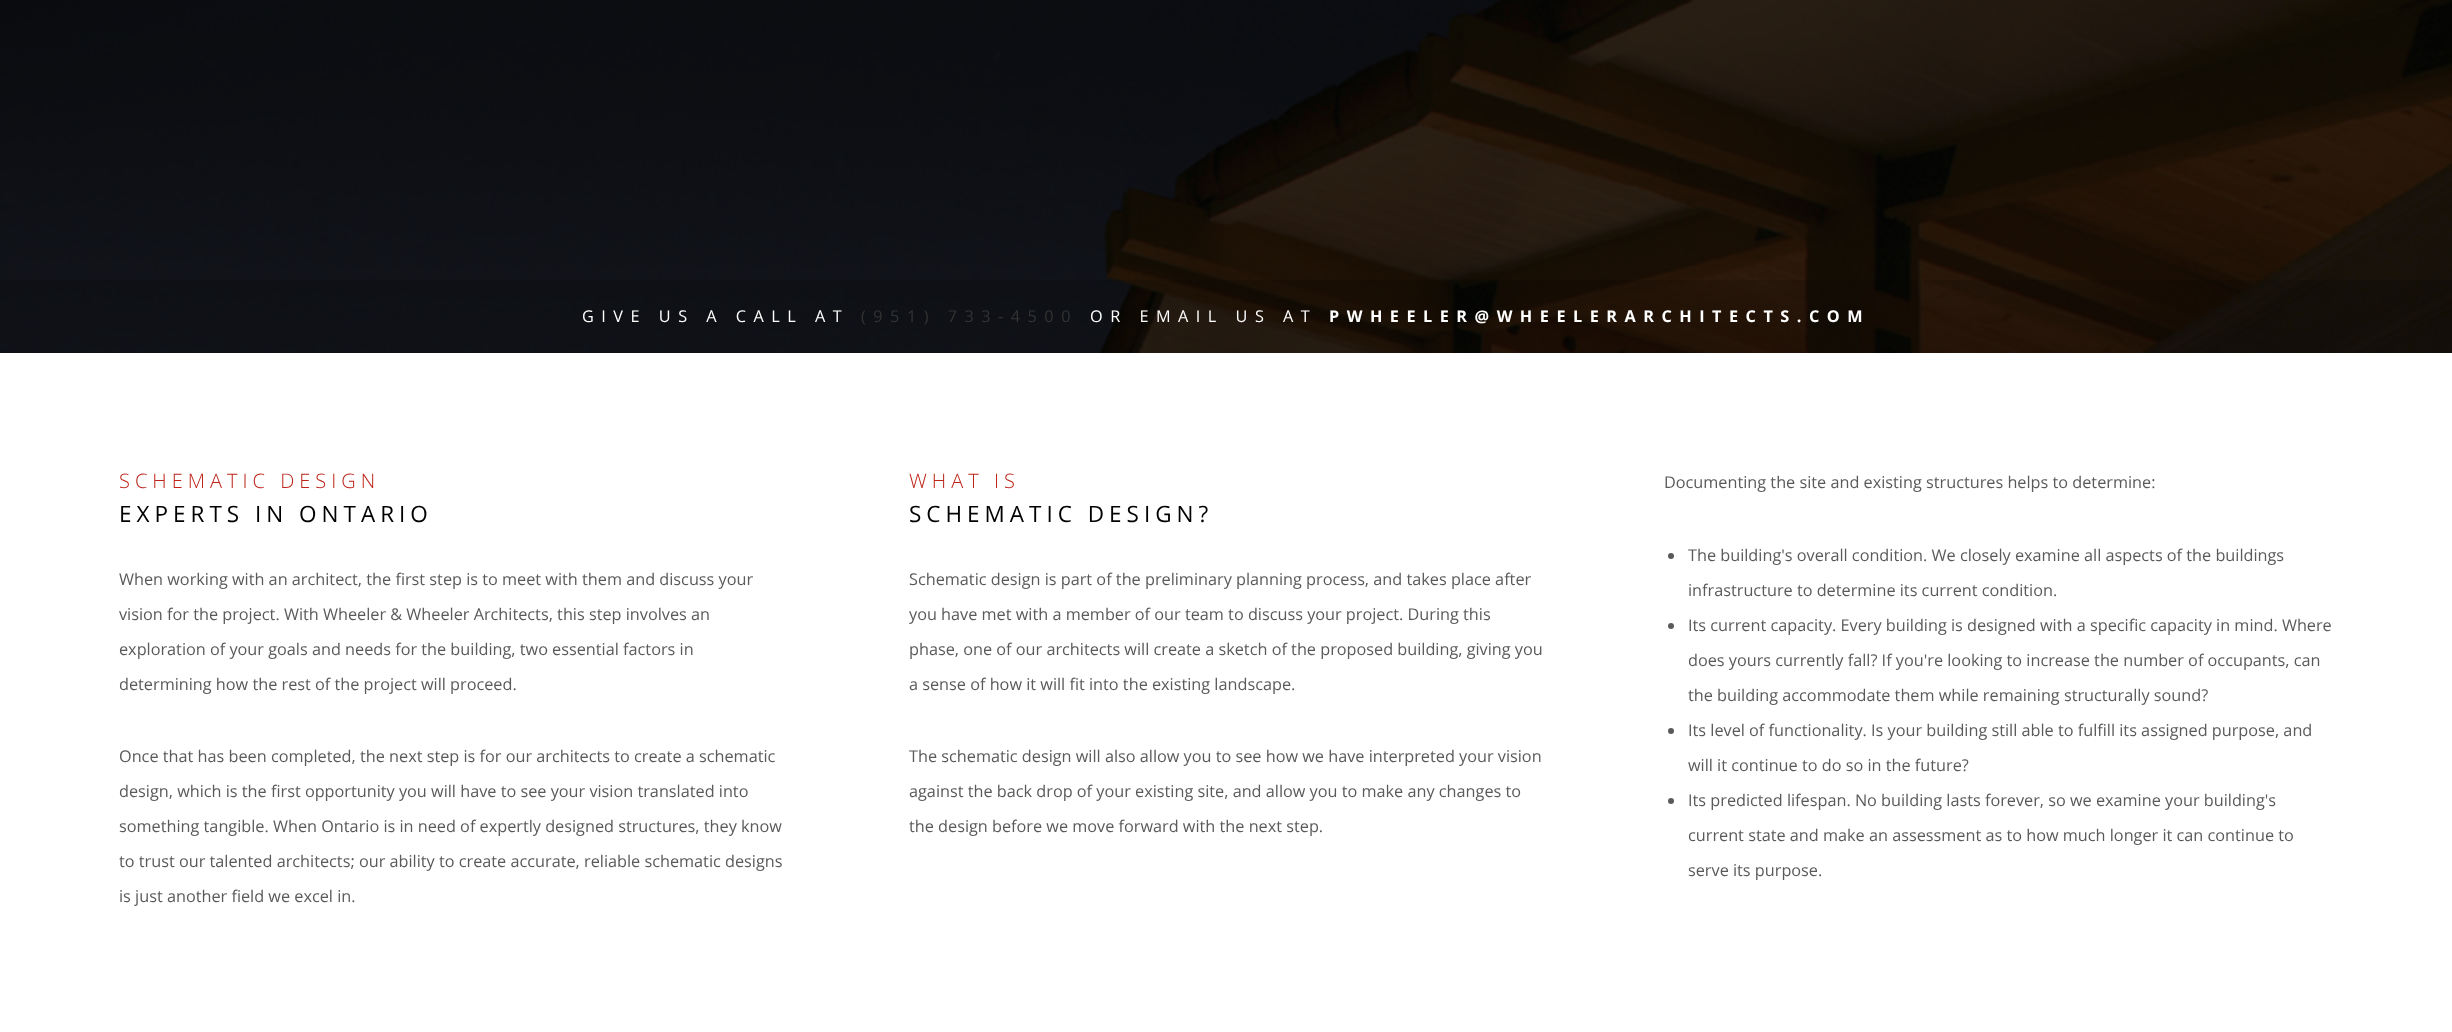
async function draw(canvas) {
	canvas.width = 2452;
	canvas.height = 1032;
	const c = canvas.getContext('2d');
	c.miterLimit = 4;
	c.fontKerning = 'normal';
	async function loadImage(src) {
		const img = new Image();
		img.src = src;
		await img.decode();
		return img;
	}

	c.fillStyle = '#fff';
	c.fillRect(0, 0, 2452, 1032);
	c.drawImage(await loadImage('img1.png'), 0, 0, 2452, 353);
	c.fillStyle = '#000000bd';
	c.fillRect(0, 0, 2452, 280);
	c.fillStyle = '#000000c7';
	c.fillRect(0, 280, 2452, 73);
	c.letterSpacing = '7.5px';
	c.font = '16.25px Open Sans';
	c.fillStyle = '#fff';
	c.fillText('GIVE US A CALL AT', 582, 322);
	c.fillStyle = '#333';
	c.fillText('(951) 733-4500', 861, 322);
	c.fillStyle = '#fff';
	c.fillText('OR EMAIL US AT', 1090, 322);
	c.font = 'bold 16.25px Open Sans';
	c.fillText('PWHEELER@WHEELERARCHITECTS.COM', 1329, 322);
	c.letterSpacing = '5px';
	c.font = '300 20px Open Sans';
	c.fillStyle = '#bd2318';
	c.fillText('SCHEMATIC DESIGN', 119, 488);
	c.font = '22.5px Open Sans';
	c.fillStyle = '#000';
	c.fillText('EXPERTS IN ONTARIO', 119, 522);
	c.letterSpacing = '0px';
	c.font = '16.25px Open Sans';
	c.fillStyle = '#5a5a5a';
	for (const [text, x, y] of [
		['When working with an architect, the first step is to meet with them and discuss your', 119, 585],
		['vision for the project. With Wheeler & Wheeler Architects, this step involves an', 119, 620],
		['exploration of your goals and needs for the building, two essential factors in', 119, 655],
		['determining how the rest of the project will proceed.', 119, 690],
		['Once that has been completed, the next step is for our architects to create a schematic', 119, 762],
		['design, which is the first opportunity you will have to see your vision translated into', 119, 797],
		['something tangible. When Ontario is in need of expertly designed structures, they know', 119, 832],
		['to trust our talented architects; our ability to create accurate, reliable schematic designs', 119, 867],
		['is just another field we excel in.', 119, 902],
	]) {
		c.fillText(text, x, y);
	}
	c.letterSpacing = '5px';
	c.font = '300 20px Open Sans';
	c.fillStyle = '#bd2318';
	c.fillText('WHAT IS', 909, 488);
	c.font = '22.5px Open Sans';
	c.fillStyle = '#000';
	c.fillText('SCHEMATIC DESIGN?', 909, 522);
	c.letterSpacing = '0px';
	c.font = '16.25px Open Sans';
	c.fillStyle = '#5a5a5a';
	for (const [text, x, y] of [
		['Schematic design is part of the preliminary planning process, and takes place after', 909, 585],
		['you have met with a member of our team to discuss your project. During this', 909, 620],
		['phase, one of our architects will create a sketch of the proposed building, giving you', 909, 655],
		['a sense of how it will fit into the existing landscape.', 909, 690],
		['The schematic design will also allow you to see how we have interpreted your vision', 909, 762],
		['against the back drop of your existing site, and allow you to make any changes to', 909, 797],
		['the design before we move forward with the next step.', 909, 832],
		['Documenting the site and existing structures helps to determine:', 1664, 488],
	]) {
		c.fillText(text, x, y);
	}
	c.beginPath();
	c.arc(1671, 556, 3, 0, 2 * Math.PI);
	c.fill();
	c.fillText('The building\'s overall condition. We closely examine all aspects of the buildings', 1688, 561);
	c.fillText('infrastructure to determine its current condition.', 1688, 596);
	c.beginPath();
	c.arc(1671, 626, 3, 0, 2 * Math.PI);
	c.fill();
	for (const [text, x, y] of [
		['Its current capacity. Every building is designed with a specific capacity in mind. Where', 1688, 631],
		['does yours currently fall? If you\'re looking to increase the number of occupants, can', 1688, 666],
		['the building accommodate them while remaining structurally sound?', 1688, 701],
	]) {
		c.fillText(text, x, y);
	}
	c.beginPath();
	c.arc(1671, 731, 3, 0, 2 * Math.PI);
	c.fill();
	c.fillText('Its level of functionality. Is your building still able to fulfill its assigned purpose, and', 1688, 736);
	c.fillText('will it continue to do so in the future?', 1688, 771);
	c.beginPath();
	c.arc(1671, 801, 3, 0, 2 * Math.PI);
	c.fill();
	for (const [text, x, y] of [
		['Its predicted lifespan. No building lasts forever, so we examine your building\'s', 1688, 806],
		['current state and make an assessment as to how much longer it can continue to', 1688, 841],
		['serve its purpose.', 1688, 876],
	]) {
		c.fillText(text, x, y);
	}
}

draw(document.querySelector('canvas'));
